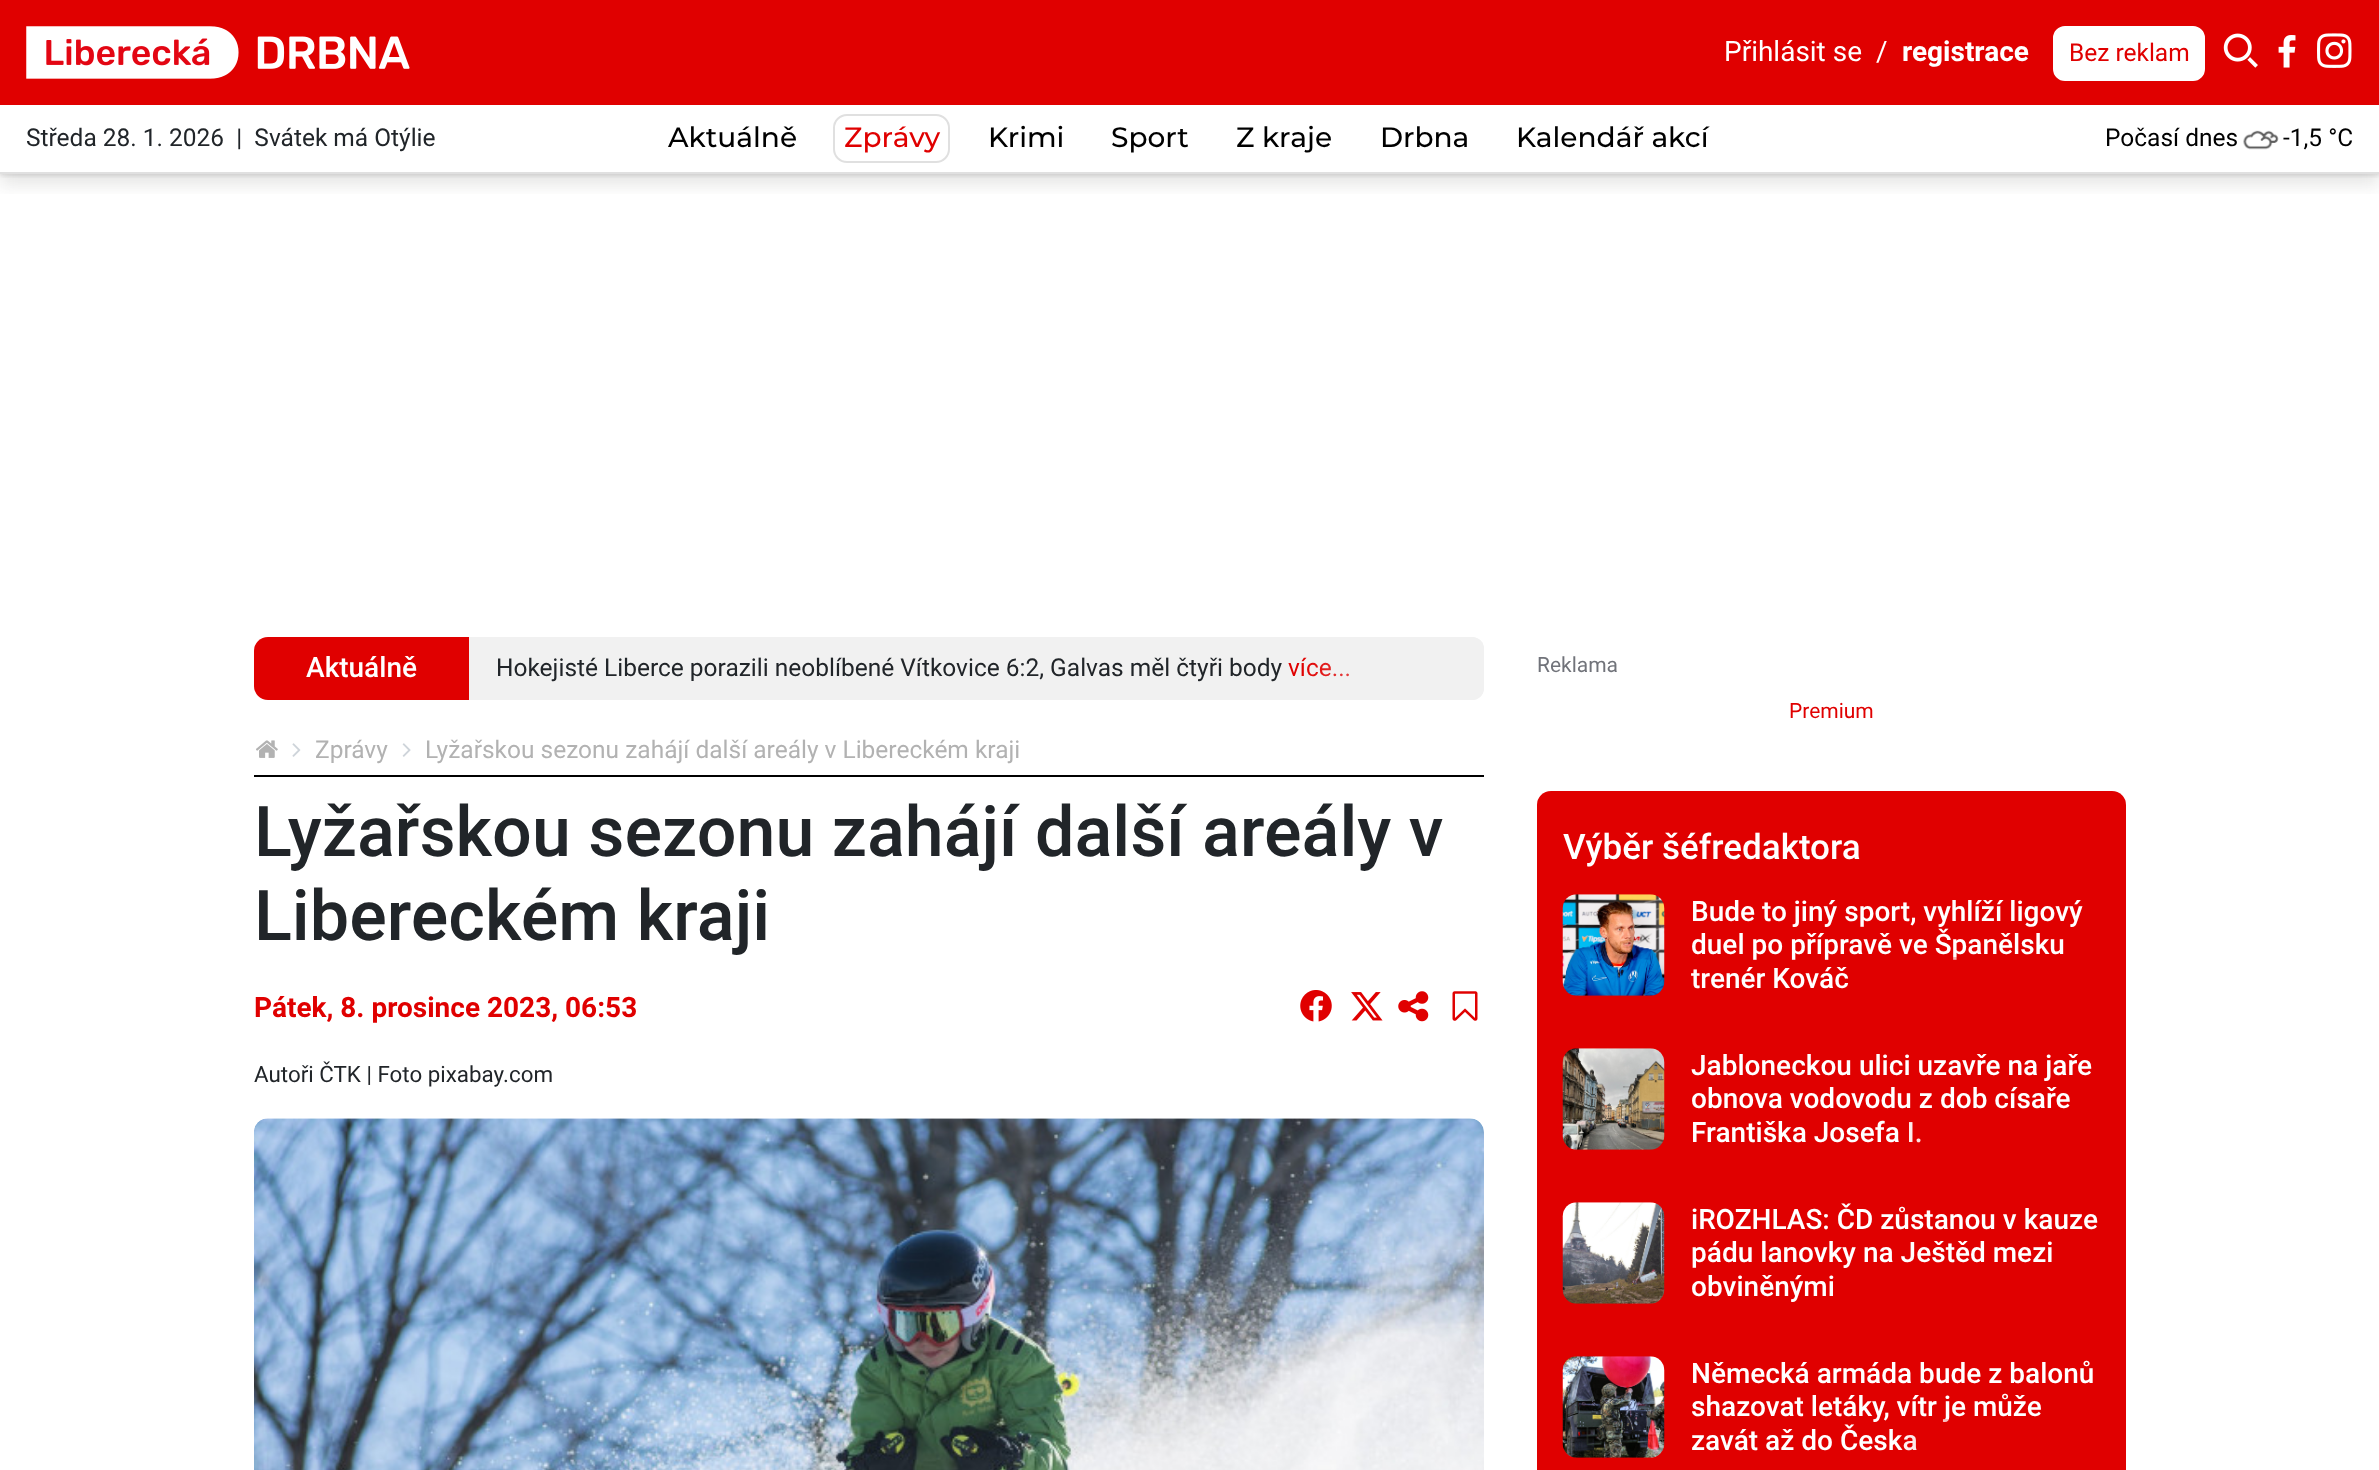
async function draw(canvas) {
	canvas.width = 2379;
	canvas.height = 1470;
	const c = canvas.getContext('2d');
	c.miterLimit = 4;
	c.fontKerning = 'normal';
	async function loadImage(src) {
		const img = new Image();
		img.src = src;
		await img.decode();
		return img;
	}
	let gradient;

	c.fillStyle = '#fff';
	c.fillRect(0, 0, 2379, 1470);
	c.save();
	c.beginPath();
	c.rect(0, 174, 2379, 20);
	c.clip();
	c.fillStyle = '#4d484526';
	c.filter = 'blur(9px)';
	c.beginPath();
	c.rect(0, 11, 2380, 173);
	c.fill();
	c.filter = 'none';
	c.restore();
	c.save();
	c.beginPath();
	c.rect(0, 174, 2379, 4);
	c.clip();
	c.fillStyle = '#4d484533';
	c.filter = 'blur(2.5px)';
	c.beginPath();
	c.rect(0, 2, 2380, 173);
	c.fill();
	c.filter = 'none';
	c.restore();
	c.fillStyle = '#e0e0e0';
	c.fillRect(0, 172, 2379, 2);
	c.fillStyle = '#e00000';
	c.fillRect(0, 0, 2379, 105);
	c.drawImage(await loadImage('img1.png'), 26, 26, 384, 53);
	c.font = '28px Roboto';
	c.fillStyle = '#fff';
	c.fillText('Přihlásit se', 1724, 61);
	c.fillText('/', 1876, 61);
	c.font = 'bold 28px Roboto';
	c.fillText('registrace', 1902, 61);
	c.beginPath();
	c.roundRect(2054, 27, 150, 53, 11);
	c.fill();
	c.strokeStyle = '#fff';
	c.lineWidth = 2;
	c.stroke();
	c.font = '24.5px Roboto';
	c.fillStyle = '#e00000';
	c.fillText('Bez reklam', 2069, 61);
	c.drawImage(await loadImage('img2.png'), 2223, 33, 35, 35);
	c.drawImage(await loadImage('img3.png'), 2278, 35, 18, 33);
	c.drawImage(await loadImage('img4.png'), 2317, 33, 35, 35);
	c.fillStyle = '#212529';
	c.fillText('Středa 28. 1. 2026  |  Svátek má Otýlie', 26, 146);
	c.font = '500 28px Montserrat';
	c.fillStyle = '#000';
	c.fillText('Aktuálně', 668, 147);
	c.beginPath();
	c.roundRect(834, 115, 115, 47, 13);
	c.strokeStyle = '#e0e0e0';
	c.stroke();
	c.fillStyle = '#e00000';
	c.fillText('Zprávy', 844, 147);
	c.fillStyle = '#000';
	for (const [text, x, y] of [
		['Krimi', 988, 147],
		['Sport', 1111, 147],
		['Z kraje', 1236, 147],
		['Drbna', 1380, 147],
		['Kalendář akcí', 1516, 147],
	]) {
		c.fillText(text, x, y);
	}
	c.font = '24.5px Roboto';
	c.fillText('Počasí dnes', 2105, 146);
	c.drawImage(await loadImage('img5.png'), 2243, 130, 36, 20);
	c.fillText('-1,5 °C', 2283, 146);
	c.fillStyle = '#e00000';
	c.beginPath();
	c.roundRect(254, 637, 215, 63, [14, 0, 0, 14]);
	c.fill();
	c.font = '500 28px Roboto';
	c.fillStyle = '#fff';
	c.fillText('Aktuálně', 306, 677);
	c.fillStyle = '#f1f1f1';
	c.beginPath();
	c.roundRect(469, 637, 1015, 63, [0, 12, 12, 0]);
	c.fill();
	c.font = '24.5px Roboto';
	c.fillStyle = '#212529';
	c.fillText('Hokejisté Liberce porazili neoblíbené Vítkovice 6:2, Galvas měl čtyři body', 496, 676);
	c.fillStyle = '#e00000';
	c.fillText('více...', 1288, 676);
	gradient = c.createLinearGradient(1302, 669, 1486, 669);
	gradient.addColorStop(0, '#f1f1f100');
	gradient.addColorStop(1, '#f1f1f1');
	c.fillStyle = gradient;
	c.beginPath();
	c.roundRect(1302, 637, 182, 63, [0, 12, 12, 0]);
	c.fill();
	c.fillStyle = '#000';
	c.fillRect(254, 775, 1230, 2);
	c.drawImage(await loadImage('img6.png'), 256, 740, 22, 18);
	c.drawImage(await loadImage('img7.png'), 292, 743, 9, 14);
	c.fillStyle = '#b2b2b2';
	c.fillText('Zprávy', 315, 758);
	c.drawImage(await loadImage('img8.png'), 402, 743, 9, 14);
	c.fillText('Lyžařskou sezonu zahájí další areály v Libereckém kraji', 425, 758);
	c.font = '500 70px Roboto';
	c.fillStyle = '#212529';
	c.fillText('Lyžařskou sezonu zahájí další areály v', 254, 856);
	c.fillText('Libereckém kraji', 254, 940);
	c.font = 'bold 28px Roboto';
	c.fillStyle = '#e00000';
	c.fillText('Pátek, 8. prosince 2023, 06:53', 254, 1017);
	c.drawImage(await loadImage('img9.png'), 1300, 990, 32, 32);
	c.drawImage(await loadImage('img10.png'), 1351, 992, 32, 29);
	c.drawImage(await loadImage('img11.png'), 1398, 991, 31, 31);
	c.drawImage(await loadImage('img12.png'), 1452, 991, 26, 30);
	c.font = '22.4px Roboto';
	c.fillStyle = '#212529';
	c.fillText('Autoři ČTK | Foto pixabay.com', 254, 1082);
	c.drawImage(await loadImage('img13.png'), 254, 1118, 1230, 352);
	c.font = '21px Roboto';
	c.fillStyle = '#71737a';
	c.fillText('Reklama', 1537, 672);
	c.fillStyle = '#e00000';
	c.fillText('Premium', 1789, 718);
	c.beginPath();
	c.roundRect(1537, 791, 589, 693, 14);
	c.fill();
	c.font = '500 35px Roboto';
	c.fillStyle = '#fff';
	c.fillText('Výběr šéfredaktora', 1563, 859);
	c.drawImage(await loadImage('img14.png'), 1562, 894, 103, 102);
	c.font = '500 28px Roboto';
	c.fillText('Bude to jiný sport, vyhlíží ligový', 1691, 921);
	c.fillText('duel po přípravě ve Španělsku', 1691, 954);
	gradient = c.createLinearGradient(1895, 977, 2100, 977);
	gradient.addColorStop(0, '#e0000000');
	gradient.addColorStop(1, '#e00000');
	c.fillStyle = gradient;
	c.fillRect(1953, 957, 4, 3);
	c.fillStyle = '#fff';
	c.fillText('trenér Kováč', 1691, 988);
	c.drawImage(await loadImage('img15.png'), 1562, 1048, 103, 102);
	for (const [text, x, y] of [
		['Jabloneckou ulici uzavře na jaře', 1691, 1075],
		['obnova vodovodu z dob císaře', 1691, 1108],
		['Františka Josefa I.', 1691, 1142],
	]) {
		c.fillText(text, x, y);
	}
	gradient = c.createLinearGradient(1895, 1131, 2100, 1131);
	gradient.addColorStop(0, '#e0000000');
	gradient.addColorStop(1, '#e00000');
	c.fillStyle = gradient;
	c.fillRect(1909, 1122, 12, 21);
	c.drawImage(await loadImage('img16.png'), 1562, 1202, 103, 102);
	c.fillStyle = '#fff';
	for (const [text, x, y] of [
		['iROZHLAS: ČD zůstanou v kauze', 1691, 1229],
		['pádu lanovky na Ještěd mezi', 1691, 1262],
		['obviněnými', 1691, 1296],
	]) {
		c.fillText(text, x, y);
	}
	c.drawImage(await loadImage('img17.png'), 1562, 1356, 103, 102);
	for (const [text, x, y] of [
		['Německá armáda bude z balonů', 1691, 1383],
		['shazovat letáky, vítr je může', 1691, 1416],
		['zavát až do Česka', 1691, 1450],
	]) {
		c.fillText(text, x, y);
	}
	gradient = c.createLinearGradient(1895, 1439, 2100, 1439);
	gradient.addColorStop(0, '#e0000000');
	gradient.addColorStop(1, '#e00000');
	c.fillStyle = gradient;
	c.fillRect(1899, 1419, 50, 32);
}

draw(document.querySelector('canvas'));
